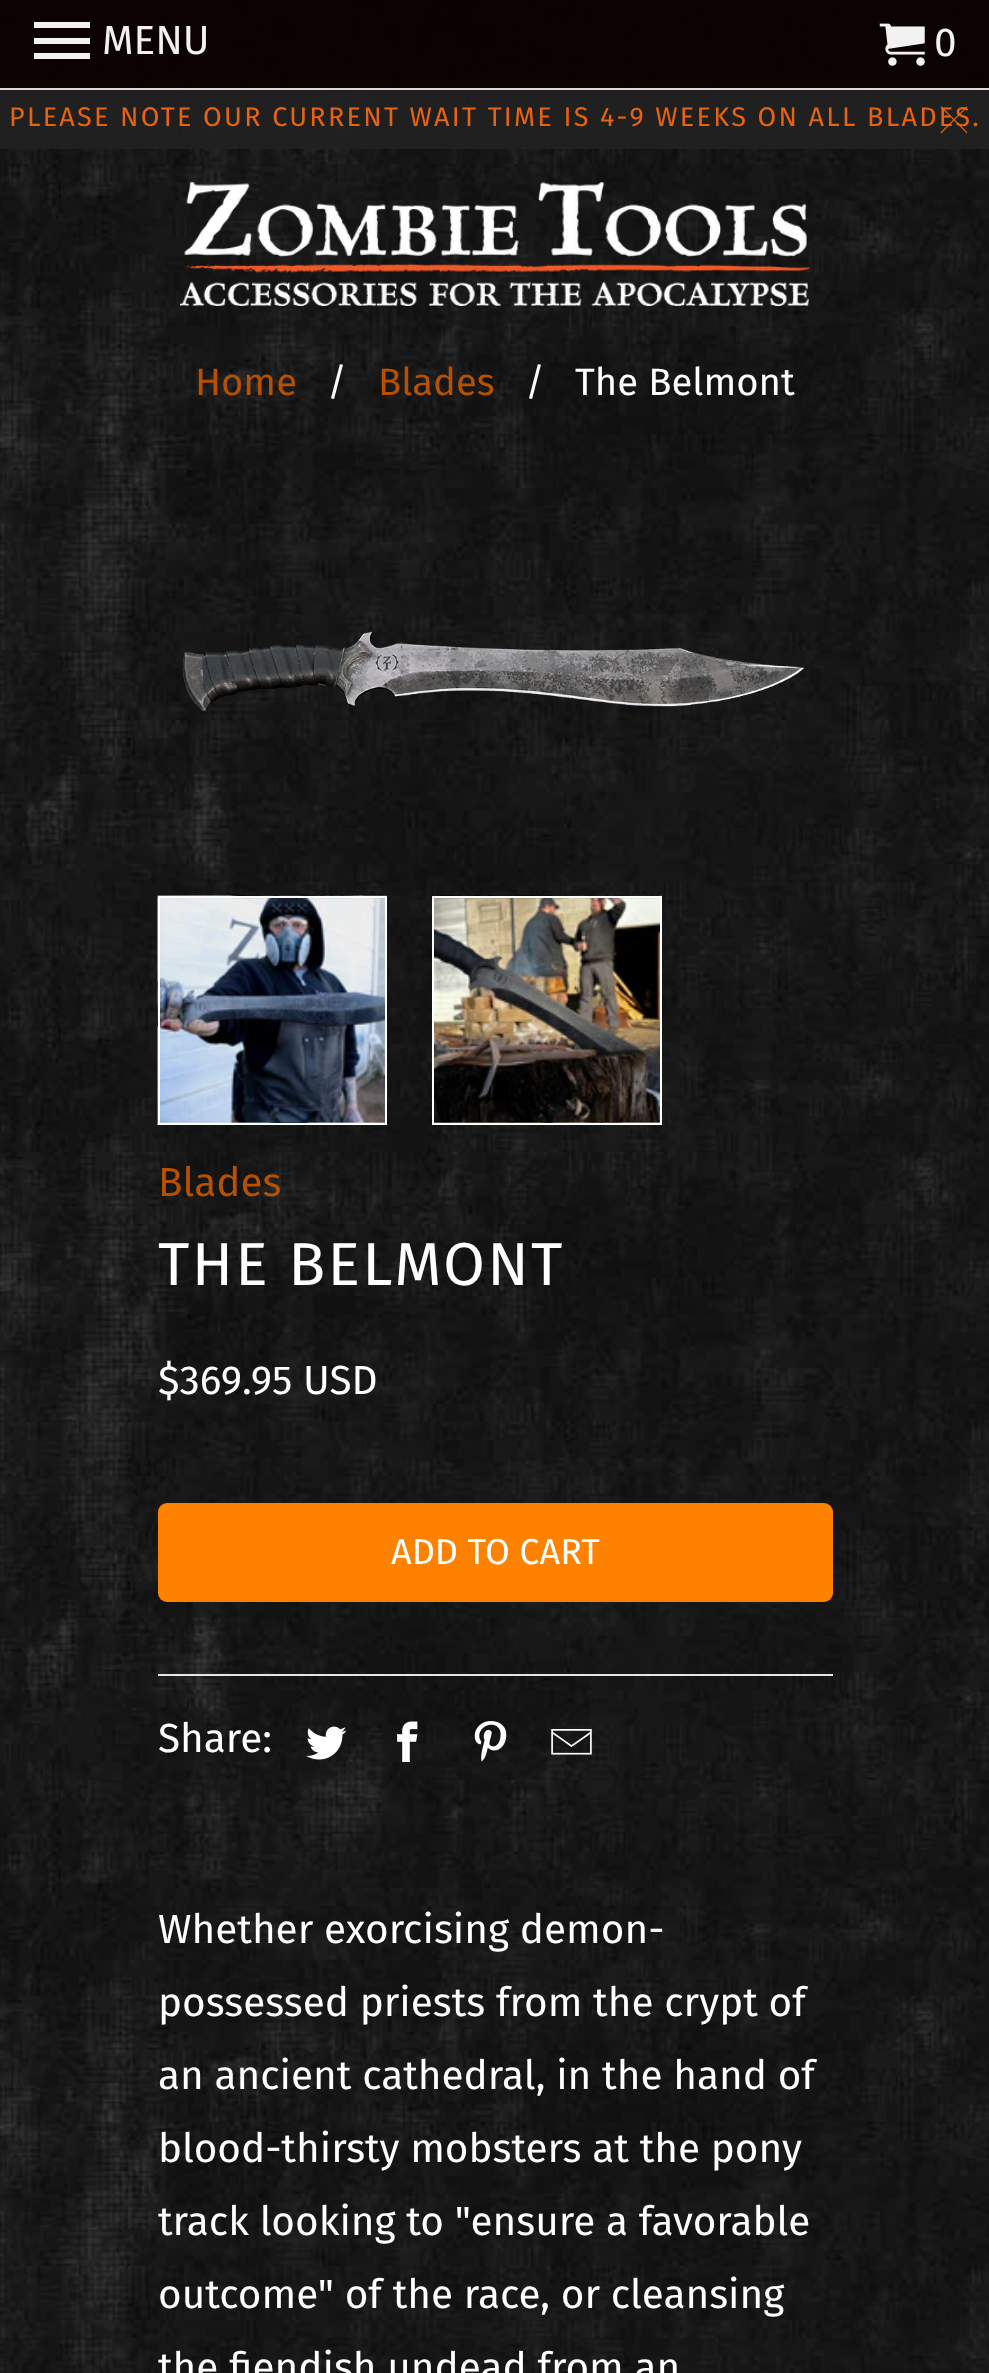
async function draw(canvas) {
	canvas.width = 989;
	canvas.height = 2373;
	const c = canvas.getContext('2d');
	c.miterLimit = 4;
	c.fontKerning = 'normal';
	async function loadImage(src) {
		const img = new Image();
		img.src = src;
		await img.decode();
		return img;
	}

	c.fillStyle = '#fff';
	c.fillRect(0, 0, 989, 2373);
	c.drawImage(await loadImage('img1.png'), 0, 0, 989, 2373);
	c.fillStyle = '#0d0101f2';
	c.fillRect(0, 0, 989, 88);
	c.fillStyle = '#dadada';
	c.fillRect(0, 88, 989, 2);
	c.fillStyle = '#f3f2f2';
	c.beginPath();
	c.moveTo(34, 59);
	c.lineTo(90, 59);
	c.lineTo(90, 53);
	c.lineTo(34, 53);
	c.closePath();
	c.moveTo(34, 44);
	c.lineTo(90, 44);
	c.lineTo(90, 38);
	c.lineTo(34, 38);
	c.closePath();
	c.moveTo(34, 22);
	c.lineTo(34, 28);
	c.lineTo(90, 28);
	c.lineTo(90, 22);
	c.closePath();
	c.fill();
	c.font = '40.5px Fira Sans';
	c.fillText('MENU', 102, 54);
	c.drawImage(await loadImage('img2.png'), 879, 23, 46, 43);
	c.fillText('0', 934, 56);
	c.fillStyle = '#212121f2';
	c.fillRect(0, 90, 989, 59);
	c.letterSpacing = '2.25px';
	c.font = '27px Fira Sans';
	c.fillStyle = '#e8630e';
	c.fillText('PLEASE NOTE OUR CURRENT WAIT TIME IS 4-9 WEEKS ON ALL BLADES.', 9, 126);
	c.drawImage(await loadImage('img3.png'), 940, 106, 28, 28);
	c.drawImage(await loadImage('img4.png'), 180, 182, 630, 124);
	c.letterSpacing = '0px';
	c.font = '38.25px Fira Sans';
	c.fillStyle = '#b75100';
	c.fillText('Home', 195, 395);
	c.fillStyle = '#fff';
	c.fillText('/', 327, 395);
	c.fillStyle = '#b75100';
	c.fillText('Blades', 378, 395);
	c.fillStyle = '#fff';
	c.fillText('/', 525, 395);
	c.fillText('The Belmont', 575, 395);
	c.drawImage(await loadImage('img5.png'), 182, 631, 622, 81);
	c.drawImage(await loadImage('img6.png'), 157, 895, 230, 230);
	c.strokeStyle = '#fff';
	c.lineWidth = 2;
	c.strokeRect(159, 897, 227, 227);
	c.drawImage(await loadImage('img7.png'), 432, 895, 230, 228);
	c.strokeRect(433, 897, 228, 227);
	c.font = '40.5px Fira Sans';
	c.fillStyle = '#b75100';
	c.fillText('Blades', 158, 1196);
	c.letterSpacing = '2.25px';
	c.font = '60.75px Fira Sans';
	c.fillStyle = '#fff';
	c.fillText('THE BELMONT', 158, 1285);
	c.letterSpacing = '0px';
	c.font = '40.5px Fira Sans';
	c.fillText('$369.95 USD', 158, 1394);
	c.fillStyle = '#ff8100';
	c.beginPath();
	c.roundRect(158, 1503, 675, 99, 9);
	c.fill();
	c.font = '36px Fira Sans';
	c.fillStyle = '#fff';
	c.fillText('ADD TO CART', 391, 1564);
	c.fillStyle = '#e5e5e5';
	c.fillRect(158, 1674, 675, 2);
	c.font = '40.5px Fira Sans';
	c.fillStyle = '#fff';
	c.fillText('Share:', 158, 1752);
	c.drawImage(await loadImage('img8.png'), 306, 1726, 41, 34);
	c.drawImage(await loadImage('img9.png'), 397, 1721, 21, 41);
	c.drawImage(await loadImage('img10.png'), 474, 1721, 33, 41);
	c.drawImage(await loadImage('img11.png'), 551, 1729, 41, 26);
	for (const [text, x, y] of [
		['Whether exorcising demon-', 158, 1943],
		['possessed priests from the crypt of', 158, 2016],
		['an ancient cathedral, in the hand of', 158, 2089],
		['blood-thirsty mobsters at the pony', 158, 2162],
		['track looking to "ensure a favorable', 158, 2235],
		['outcome" of the race, or cleansing', 158, 2308],
		['the fiendish undead from an', 158, 2381],
	]) {
		c.fillText(text, x, y);
	}
}

draw(document.querySelector('canvas'));
